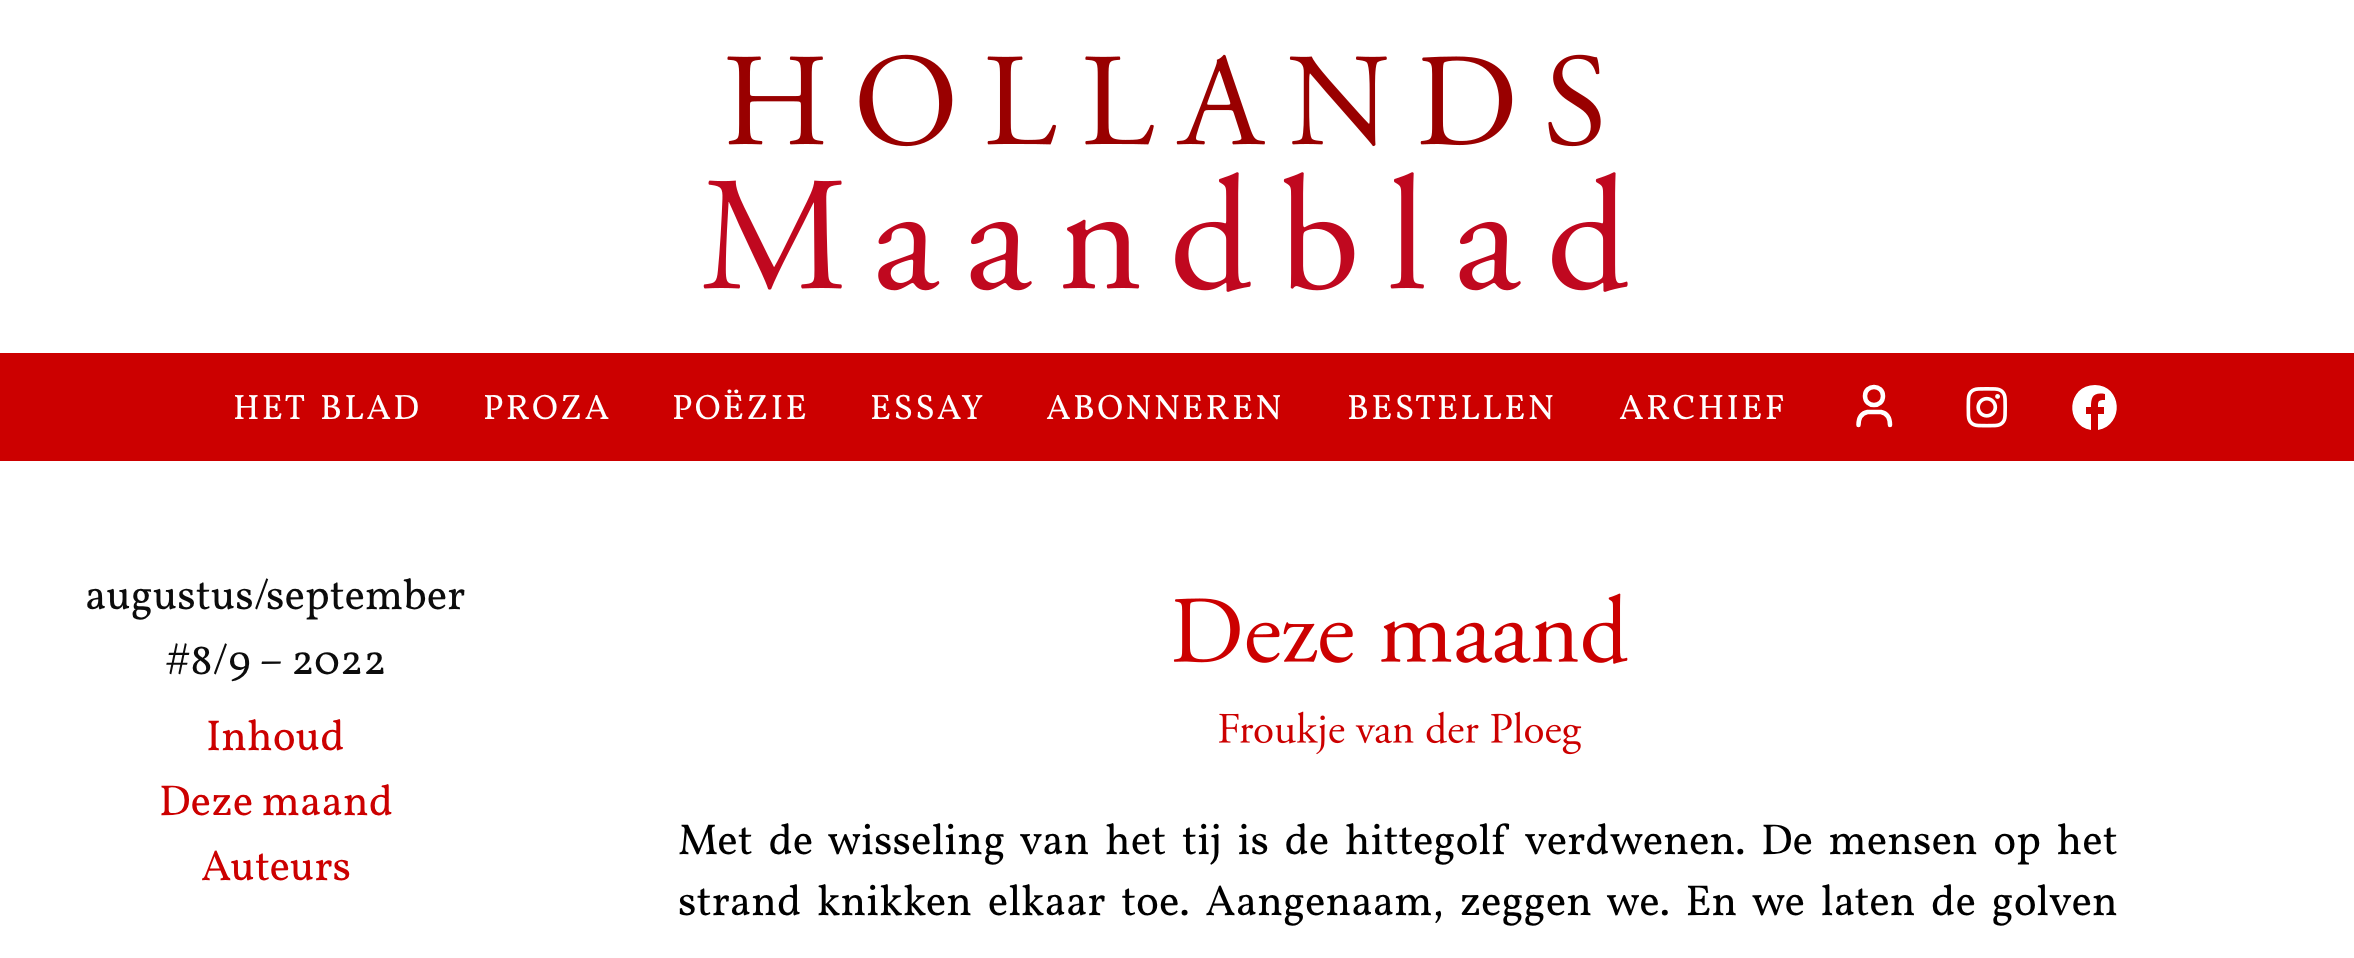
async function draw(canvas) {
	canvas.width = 2354;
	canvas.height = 958;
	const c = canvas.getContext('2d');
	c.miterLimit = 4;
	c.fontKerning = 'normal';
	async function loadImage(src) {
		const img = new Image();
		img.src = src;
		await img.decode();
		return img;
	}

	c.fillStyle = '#fff';
	c.fillRect(0, 0, 2354, 958);
	c.drawImage(await loadImage('img1.png'), 727, 54, 874, 93);
	c.drawImage(await loadImage('img2.png'), 703, 172, 925, 120);
	c.fillStyle = '#c00';
	c.fillRect(0, 353, 2354, 108);
	c.letterSpacing = '2.25px';
	c.font = '35.25px Vollkorn';
	c.fillStyle = '#fff';
	for (const [text, x, y] of [
		['HET', 233, 419],
		['BLAD', 320, 419],
		['PROZA', 483, 419],
		['POËZIE', 672, 419],
		['ESSAY', 870, 419],
		['ABONNEREN', 1046, 419],
		['BESTELLEN', 1347, 419],
		['ARCHIEF', 1619, 419],
	]) {
		c.fillText(text, x, y);
	}
	c.beginPath();
	c.moveTo(1858.5, 425);
	c.bezierCurveTo(1858.5, 419, 1860.5, 413.5, 1867.5, 412);
	c.lineTo(1874, 412);
	c.lineTo(1881, 412);
	c.bezierCurveTo(1888, 413.5, 1890, 419, 1890, 425);
	c.moveTo(1883, 396);
	c.bezierCurveTo(1883, 408, 1865, 408, 1865, 396);
	c.bezierCurveTo(1865, 384, 1883, 384, 1883, 396);
	c.closePath();
	c.strokeStyle = '#fff';
	c.lineWidth = 4.5;
	c.lineCap = 'round';
	c.lineJoin = 'round';
	c.stroke();
	c.drawImage(await loadImage('img3.png'), 1966, 387, 41, 41);
	c.beginPath();
	c.moveTo(2095, 385);
	c.bezierCurveTo(2067, 385, 2064, 425, 2091, 430);
	c.lineTo(2091, 414);
	c.lineTo(2086, 414);
	c.lineTo(2086, 407);
	c.lineTo(2091, 407);
	c.bezierCurveTo(2091, 397, 2093, 392, 2105, 394);
	c.lineTo(2105, 400);
	c.bezierCurveTo(2098, 400, 2098, 401, 2098, 407);
	c.lineTo(2104, 407);
	c.lineTo(2104, 414);
	c.lineTo(2098, 414);
	c.lineTo(2098, 430);
	c.bezierCurveTo(2125, 425, 2122, 385, 2095, 385);
	c.closePath();
	c.fill();
	c.letterSpacing = '0px';
	c.font = '43.2px Vollkorn';
	c.fillStyle = '#0c0c0c';
	for (const [text, x, y] of [
		['augustus/september', 85, 609],
		['#8/9', 165, 674],
		['– 2022', 259, 674],
	]) {
		c.fillText(text, x, y);
	}
	c.fillStyle = '#c00';
	for (const [text, x, y] of [
		['Inhoud', 206, 750],
		['Deze maand', 159, 815],
		['Auteurs', 201, 880],
	]) {
		c.fillText(text, x, y);
	}
	c.drawImage(await loadImage('img4.png'), 1173, 593, 455, 71);
	c.drawImage(await loadImage('img5.png'), 1219, 711, 363, 44);
	c.wordSpacing = '6.9px';
	c.fillStyle = '#000';
	c.fillText('Met de wisseling van het tij is de hittegolf verdwenen. De mensen op het', 678, 854);
	c.wordSpacing = '7px';
	c.fillText('strand knikken elkaar toe. Aangenaam, zeggen we. En we laten de golven', 678, 915);
}

draw(document.querySelector('canvas'));
